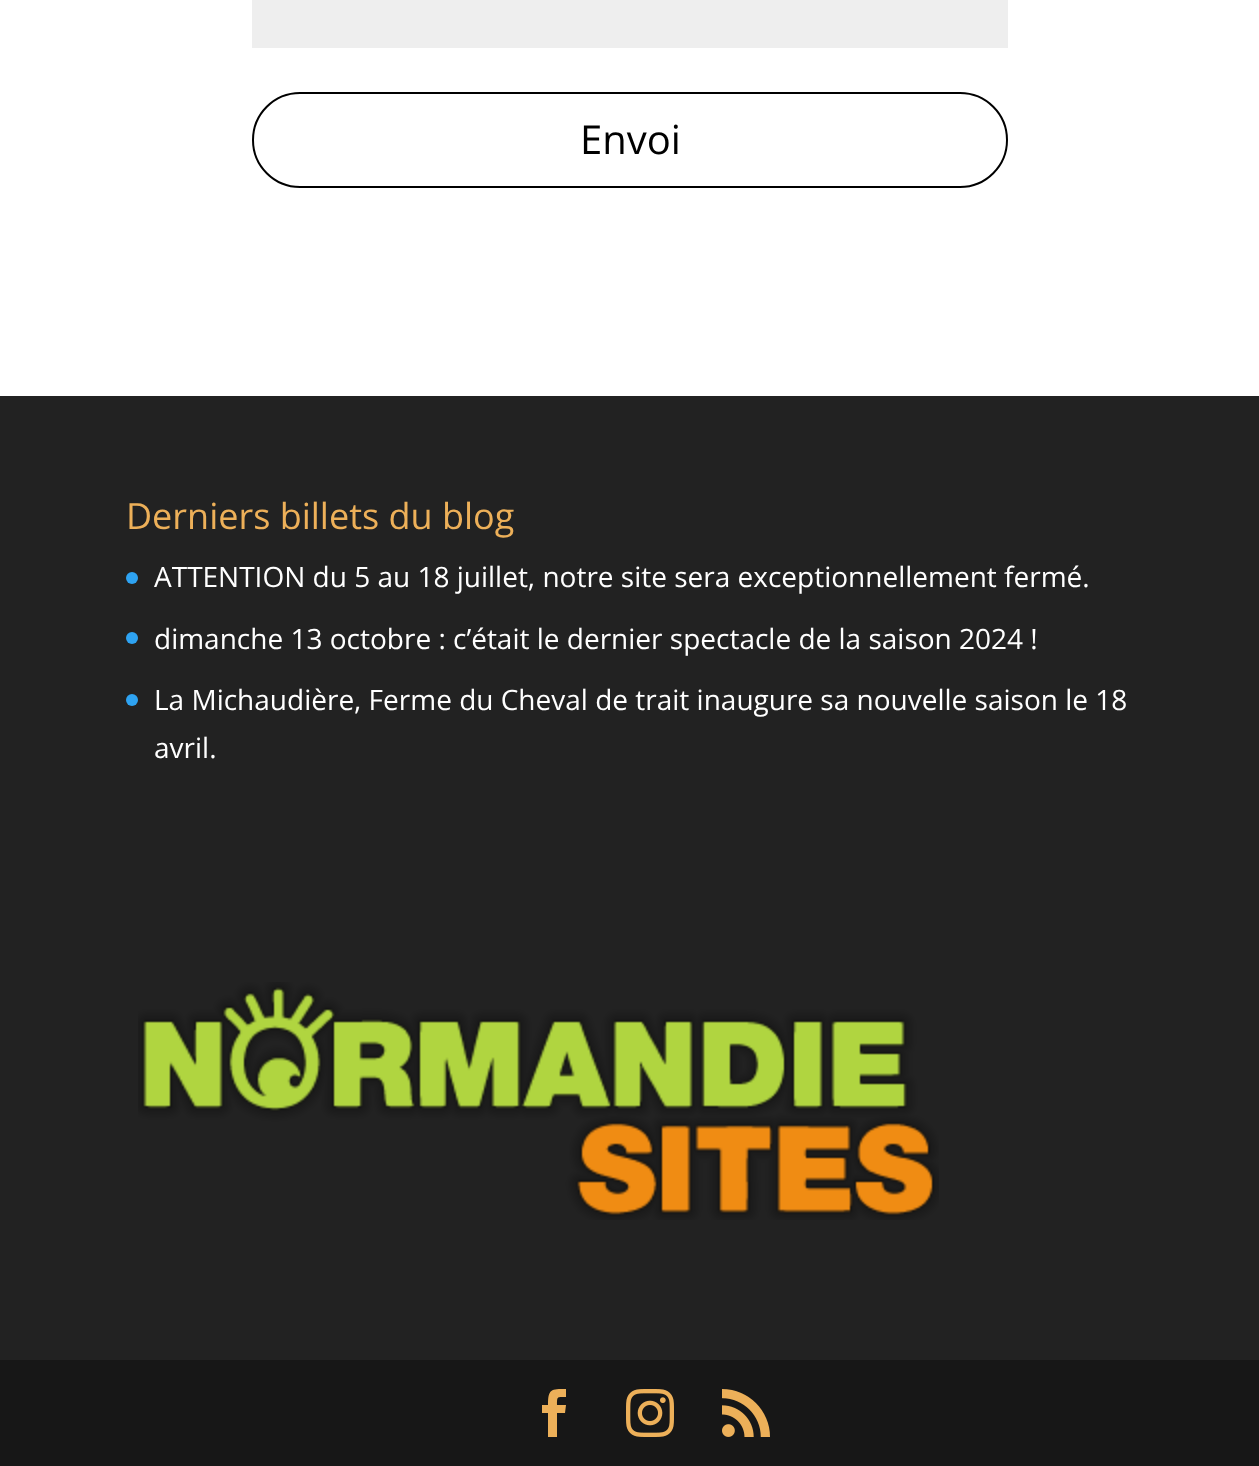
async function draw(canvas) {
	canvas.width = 1259;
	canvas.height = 1466;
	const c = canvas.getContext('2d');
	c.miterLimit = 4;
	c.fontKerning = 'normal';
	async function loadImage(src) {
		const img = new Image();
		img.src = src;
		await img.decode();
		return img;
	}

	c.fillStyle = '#222';
	c.fillRect(0, 0, 1259, 1466);
	c.fillStyle = '#fff';
	c.fillRect(0, 0, 1259, 396);
	c.fillStyle = '#eee';
	c.fillRect(252, 0, 756, 48);
	c.beginPath();
	c.roundRect(253, 93, 754, 94, 47);
	c.strokeStyle = '#000';
	c.lineWidth = 2;
	c.stroke();
	c.font = '40px Open Sans';
	c.fillStyle = '#000';
	c.fillText('Envoi', 580, 154);
	c.font = '36px Open Sans';
	c.fillStyle = '#edb059';
	c.fillText('Derniers billets du blog', 126, 529);
	c.fillStyle = '#2ea3f2';
	c.beginPath();
	c.arc(132, 578, 6, 0, 2 * Math.PI);
	c.fill();
	c.font = '28px Open Sans';
	c.fillStyle = '#fff';
	c.fillText('ATTENTION du 5 au 18 juillet, notre site sera exceptionnellement fermé.', 154, 587);
	c.fillStyle = '#2ea3f2';
	c.beginPath();
	c.arc(132, 638, 6, 0, 2 * Math.PI);
	c.fill();
	c.fillStyle = '#fff';
	c.fillText('dimanche 13 octobre : c’était le dernier spectacle de la saison 2024 !', 154, 649);
	c.fillStyle = '#2ea3f2';
	c.beginPath();
	c.arc(132, 700, 6, 0, 2 * Math.PI);
	c.fill();
	c.fillStyle = '#fff';
	c.fillText('La Michaudière, Ferme du Cheval de trait inaugure sa nouvelle saison le 18', 154, 710);
	c.fillText('avril.', 154, 758);
	c.drawImage(await loadImage('img1.png'), 138, 982, 801, 238);
	c.fillStyle = '#171717';
	c.fillRect(0, 1360, 1259, 106);
	c.fillStyle = '#edb059';
	c.beginPath();
	c.moveTo(548, 1437);
	c.lineTo(557, 1437);
	c.lineTo(557, 1413);
	c.lineTo(565, 1413);
	c.lineTo(566, 1405);
	c.lineTo(557, 1405);
	c.bezierCurveTo(557, 1396, 557, 1397, 566, 1397);
	c.lineTo(566, 1389);
	c.bezierCurveTo(551, 1389, 548, 1389, 548, 1405);
	c.lineTo(542, 1405);
	c.lineTo(542, 1413);
	c.lineTo(548, 1413);
	c.closePath();
	c.fill();
	c.drawImage(await loadImage('img2.png'), 626, 1389, 48, 48);
	c.drawImage(await loadImage('img3.png'), 722, 1389, 48, 48);
}

draw(document.querySelector('canvas'));
